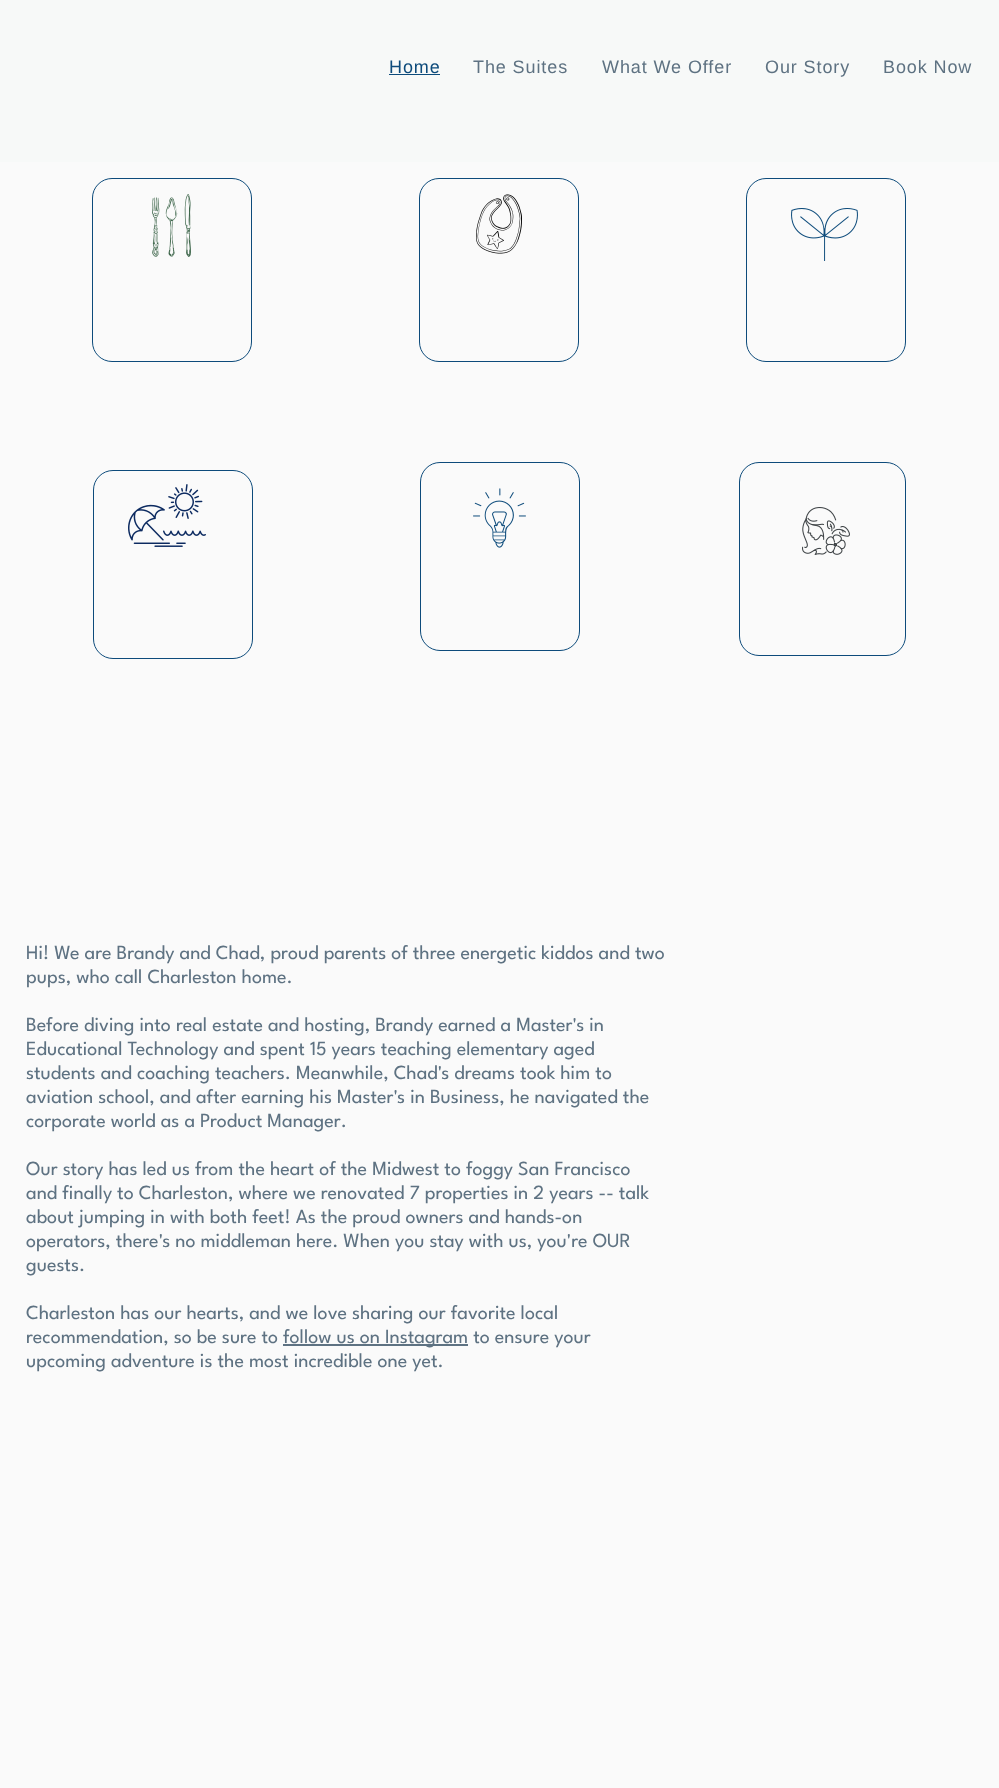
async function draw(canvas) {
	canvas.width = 999;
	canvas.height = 1788;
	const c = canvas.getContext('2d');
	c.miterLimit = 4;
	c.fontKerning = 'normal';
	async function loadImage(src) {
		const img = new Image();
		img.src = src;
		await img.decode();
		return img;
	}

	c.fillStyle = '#fafafa';
	c.fillRect(0, 0, 999, 1788);
	c.fillStyle = '#f7f9f8';
	c.fillRect(0, 0, 999, 162);
	c.letterSpacing = '0.9px';
	c.font = '18px Liberation Sans';
	c.fillStyle = '#0d4b7b';
	c.fillText('Home', 389, 73);
	c.fillRect(389, 74, 51, 1);
	c.fillStyle = '#5e7282';
	for (const [text, x, y] of [
		['The Suites', 473, 73],
		['What We Offer', 602, 73],
		['Our Story', 765, 73],
		['Book Now', 883, 73],
	]) {
		c.fillText(text, x, y);
	}
	c.beginPath();
	c.roundRect(92.5, 178.5, 159, 183, 19.5);
	c.strokeStyle = '#0d4b7b';
	c.stroke();
	c.drawImage(await loadImage('img1.png'), 152, 194, 39, 63);
	c.beginPath();
	c.roundRect(419.5, 178.5, 159, 183, 19.5);
	c.stroke();
	c.drawImage(await loadImage('img2.png'), 476, 194, 46, 60);
	c.beginPath();
	c.roundRect(746.5, 178.5, 159, 183, 19.5);
	c.stroke();
	c.drawImage(await loadImage('img3.png'), 791, 208, 67, 53);
	c.beginPath();
	c.roundRect(93.5, 470.5, 159, 188, 19.5);
	c.stroke();
	c.drawImage(await loadImage('img4.png'), 128, 484, 78, 63);
	c.beginPath();
	c.roundRect(420.5, 462.5, 159, 188, 19.5);
	c.stroke();
	c.drawImage(await loadImage('img5.png'), 473, 488, 53, 60);
	c.beginPath();
	c.roundRect(739.5, 462.5, 166, 193, 19.5);
	c.stroke();
	c.drawImage(await loadImage('img6.png'), 802, 507, 48, 48);
	c.letterSpacing = '0px';
	c.font = '20px League Spartan';
	for (const [text, x, y] of [
		['Hi! We are Brandy and Chad, proud parents of three energetic kiddos and two', 26, 959],
		['pups, who call Charleston home.', 26, 983],
		['Before diving into real estate and hosting, Brandy earned a Master\'s in', 26, 1031],
		['Educational Technology and spent 15 years teaching elementary aged', 26, 1055],
		['students and coaching teachers. Meanwhile, Chad\'s dreams took him to', 26, 1079],
		['aviation school, and after earning his Master\'s in Business, he navigated the', 26, 1103],
		['corporate world as a Product Manager.', 26, 1127],
		['Our story has led us from the heart of the Midwest to foggy San Francisco', 26, 1175],
		['and finally to Charleston, where we renovated 7 properties in 2 years -- talk', 26, 1199],
		['about jumping in with both feet! As the proud owners and hands-on', 26, 1223],
		['operators, there\'s no middleman here. When you stay with us, you\'re OUR', 26, 1247],
		['guests.', 26, 1271],
		['Charleston has our hearts, and we love sharing our favorite local', 26, 1319],
		['recommendation, so be sure to', 26, 1343],
	]) {
		c.fillText(text, x, y);
	}
	c.fillRect(283, 1344, 185, 2);
	c.fillText('follow us on Instagram to ensure your', 283, 1343);
	c.fillText('upcoming adventure is the most incredible one yet.', 26, 1367);
}

draw(document.querySelector('canvas'));
